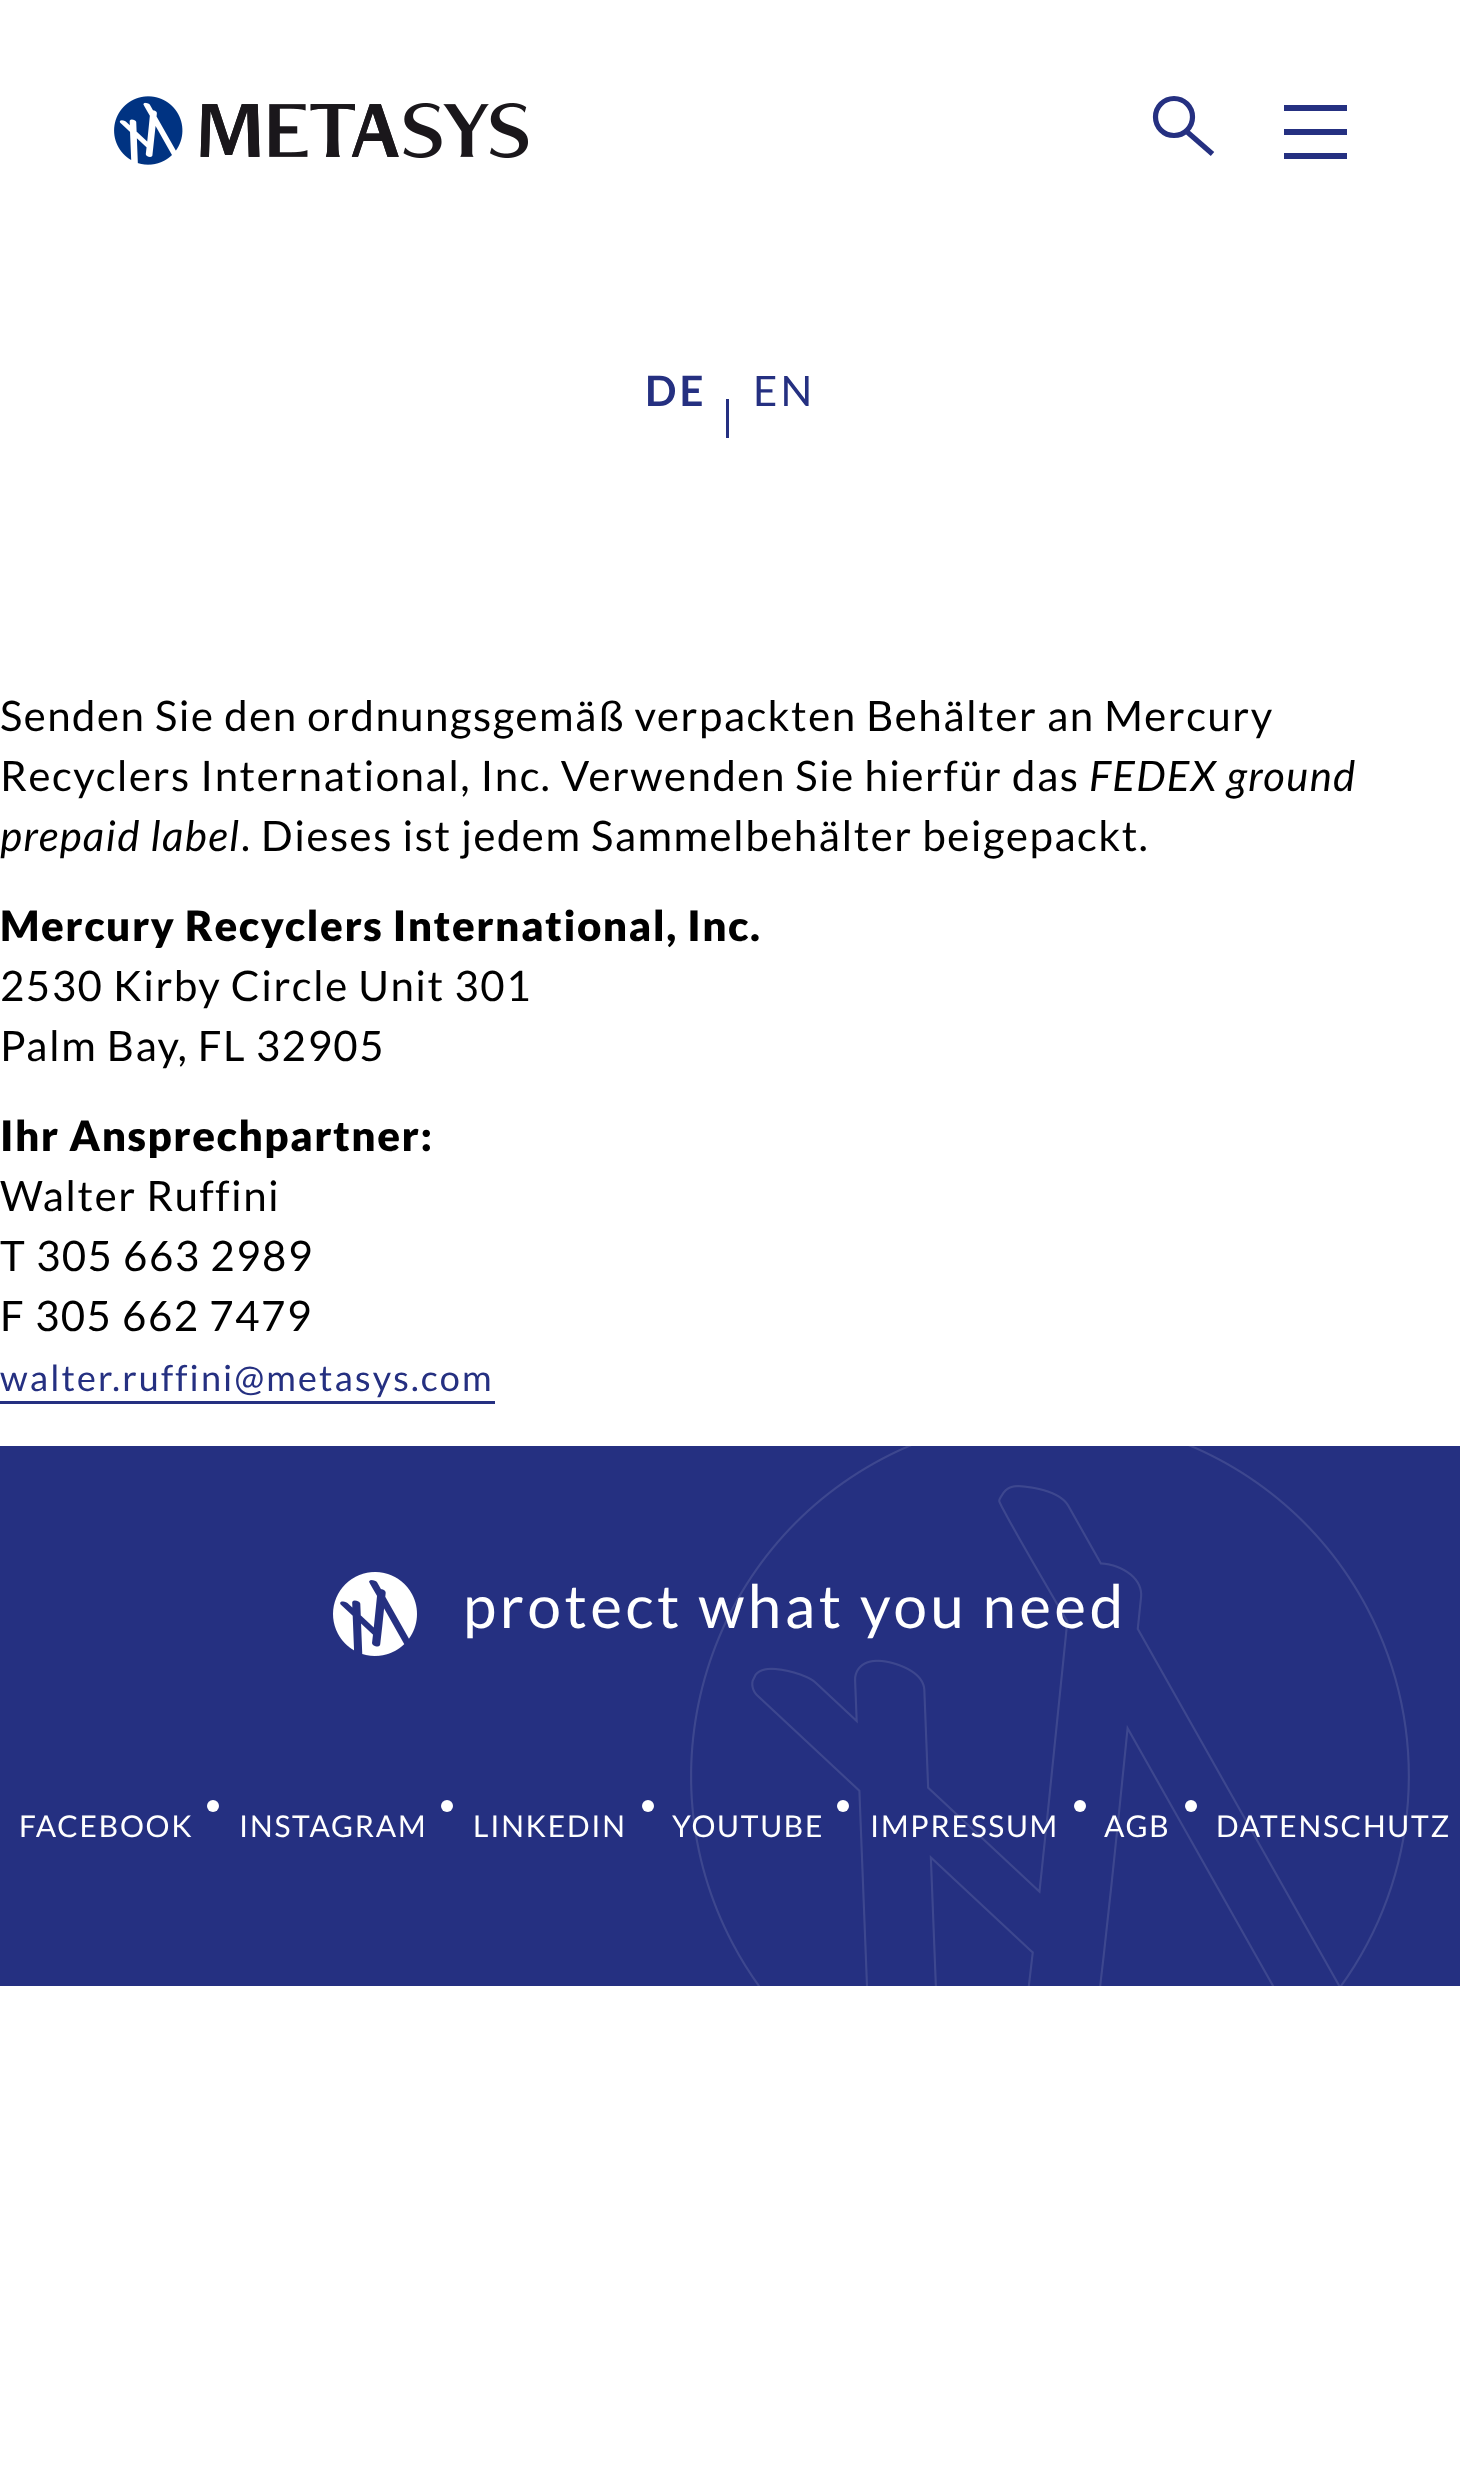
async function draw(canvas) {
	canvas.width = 1460;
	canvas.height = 2488;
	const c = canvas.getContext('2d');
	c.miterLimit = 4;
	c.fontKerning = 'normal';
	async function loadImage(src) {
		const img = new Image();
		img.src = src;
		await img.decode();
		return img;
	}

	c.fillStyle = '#fff';
	c.fillRect(0, 0, 1460, 2488);
	c.drawImage(await loadImage('img1.png'), 114, 96, 414, 69);
	c.beginPath();
	c.arc(1174, 117, 18.5, 0, 2 * Math.PI);
	c.strokeStyle = '#253081';
	c.lineWidth = 5.2;
	c.stroke();
	c.beginPath();
	c.moveTo(1185.5, 130.5);
	c.lineTo(1212.5, 154);
	c.stroke();
	for (const [x, y, w, h, color] of [
		[1284, 105, 63, 6, '#253081'],
		[1284, 129, 63, 6, '#253081'],
		[1284, 153, 63, 6, '#253081'],
	]) {
		c.fillStyle = color;
		c.fillRect(x, y, w, h);
	}
	c.letterSpacing = '3px';
	c.font = 'bold 42px Lato';
	c.fillText('DE', 645, 406);
	c.fillRect(726, 399, 3, 39);
	c.font = '42px Lato';
	c.fillText('EN', 753, 406);
	c.letterSpacing = '1.5px';
	c.fillStyle = '#000';
	c.fillText('Senden Sie den ordnungsgemäß verpackten Behälter an Mercury', 0, 731);
	c.fillText('Recyclers International, Inc. Verwenden Sie hierfür das', 0, 791);
	c.font = 'italic 42px Lato';
	c.fillText('FEDEX ground', 1089, 791);
	c.fillText('prepaid label', 0, 851);
	c.font = '42px Lato';
	c.fillText('. Dieses ist jedem Sammelbehälter beigepackt.', 241, 851);
	c.font = '900 42px Lato';
	c.fillText('Mercury Recyclers International, Inc.', 0, 941);
	c.font = '42px Lato';
	c.fillText('2530 Kirby Circle Unit 301', 0, 1001);
	c.fillText('Palm Bay, FL 32905', 0, 1061);
	c.font = '900 42px Lato';
	c.fillText('Ihr Ansprechpartner:', 0, 1151);
	c.font = '42px Lato';
	for (const [text, x, y] of [
		['Walter Ruffini', 0, 1211],
		['T 305 663 2989', 0, 1271],
		['F 305 662 7479', 0, 1331],
	]) {
		c.fillText(text, x, y);
	}
	c.letterSpacing = '2.15px';
	c.font = '36px Lato';
	c.fillStyle = '#253081';
	c.fillText('walter.ruffini@metasys.com', 0, 1391);
	c.fillRect(0, 1401, 495, 3);
	c.fillRect(0, 1446, 1460, 540);
	c.drawImage(await loadImage('img2.png'), 690, 1446, 720, 540);
	c.drawImage(await loadImage('img3.png'), 333, 1572, 84, 84);
	c.letterSpacing = '3.6px';
	c.font = '60px Lato';
	c.fillStyle = '#fff';
	c.fillText('protect what you need', 463, 1628);
	c.beginPath();
	c.arc(213, 1806, 6, 0, 2 * Math.PI);
	c.fill();
	c.letterSpacing = '1.75px';
	c.font = '30px Lato';
	c.fillText('FACEBOOK', 19, 1837);
	c.beginPath();
	c.arc(447, 1806, 6, 0, 2 * Math.PI);
	c.fill();
	c.fillText('INSTAGRAM', 239, 1837);
	c.beginPath();
	c.arc(648, 1806, 6, 0, 2 * Math.PI);
	c.fill();
	c.fillText('LINKEDIN', 473, 1837);
	c.beginPath();
	c.arc(843, 1806, 6, 0, 2 * Math.PI);
	c.fill();
	c.fillText('YOUTUBE', 672, 1837);
	c.beginPath();
	c.arc(1080, 1806, 6, 0, 2 * Math.PI);
	c.fill();
	c.fillText('IMPRESSUM', 870, 1837);
	c.beginPath();
	c.arc(1191, 1806, 6, 0, 2 * Math.PI);
	c.fill();
	c.fillText('AGB', 1104, 1837);
	c.fillText('DATENSCHUTZ', 1216, 1837);
}

draw(document.querySelector('canvas'));
